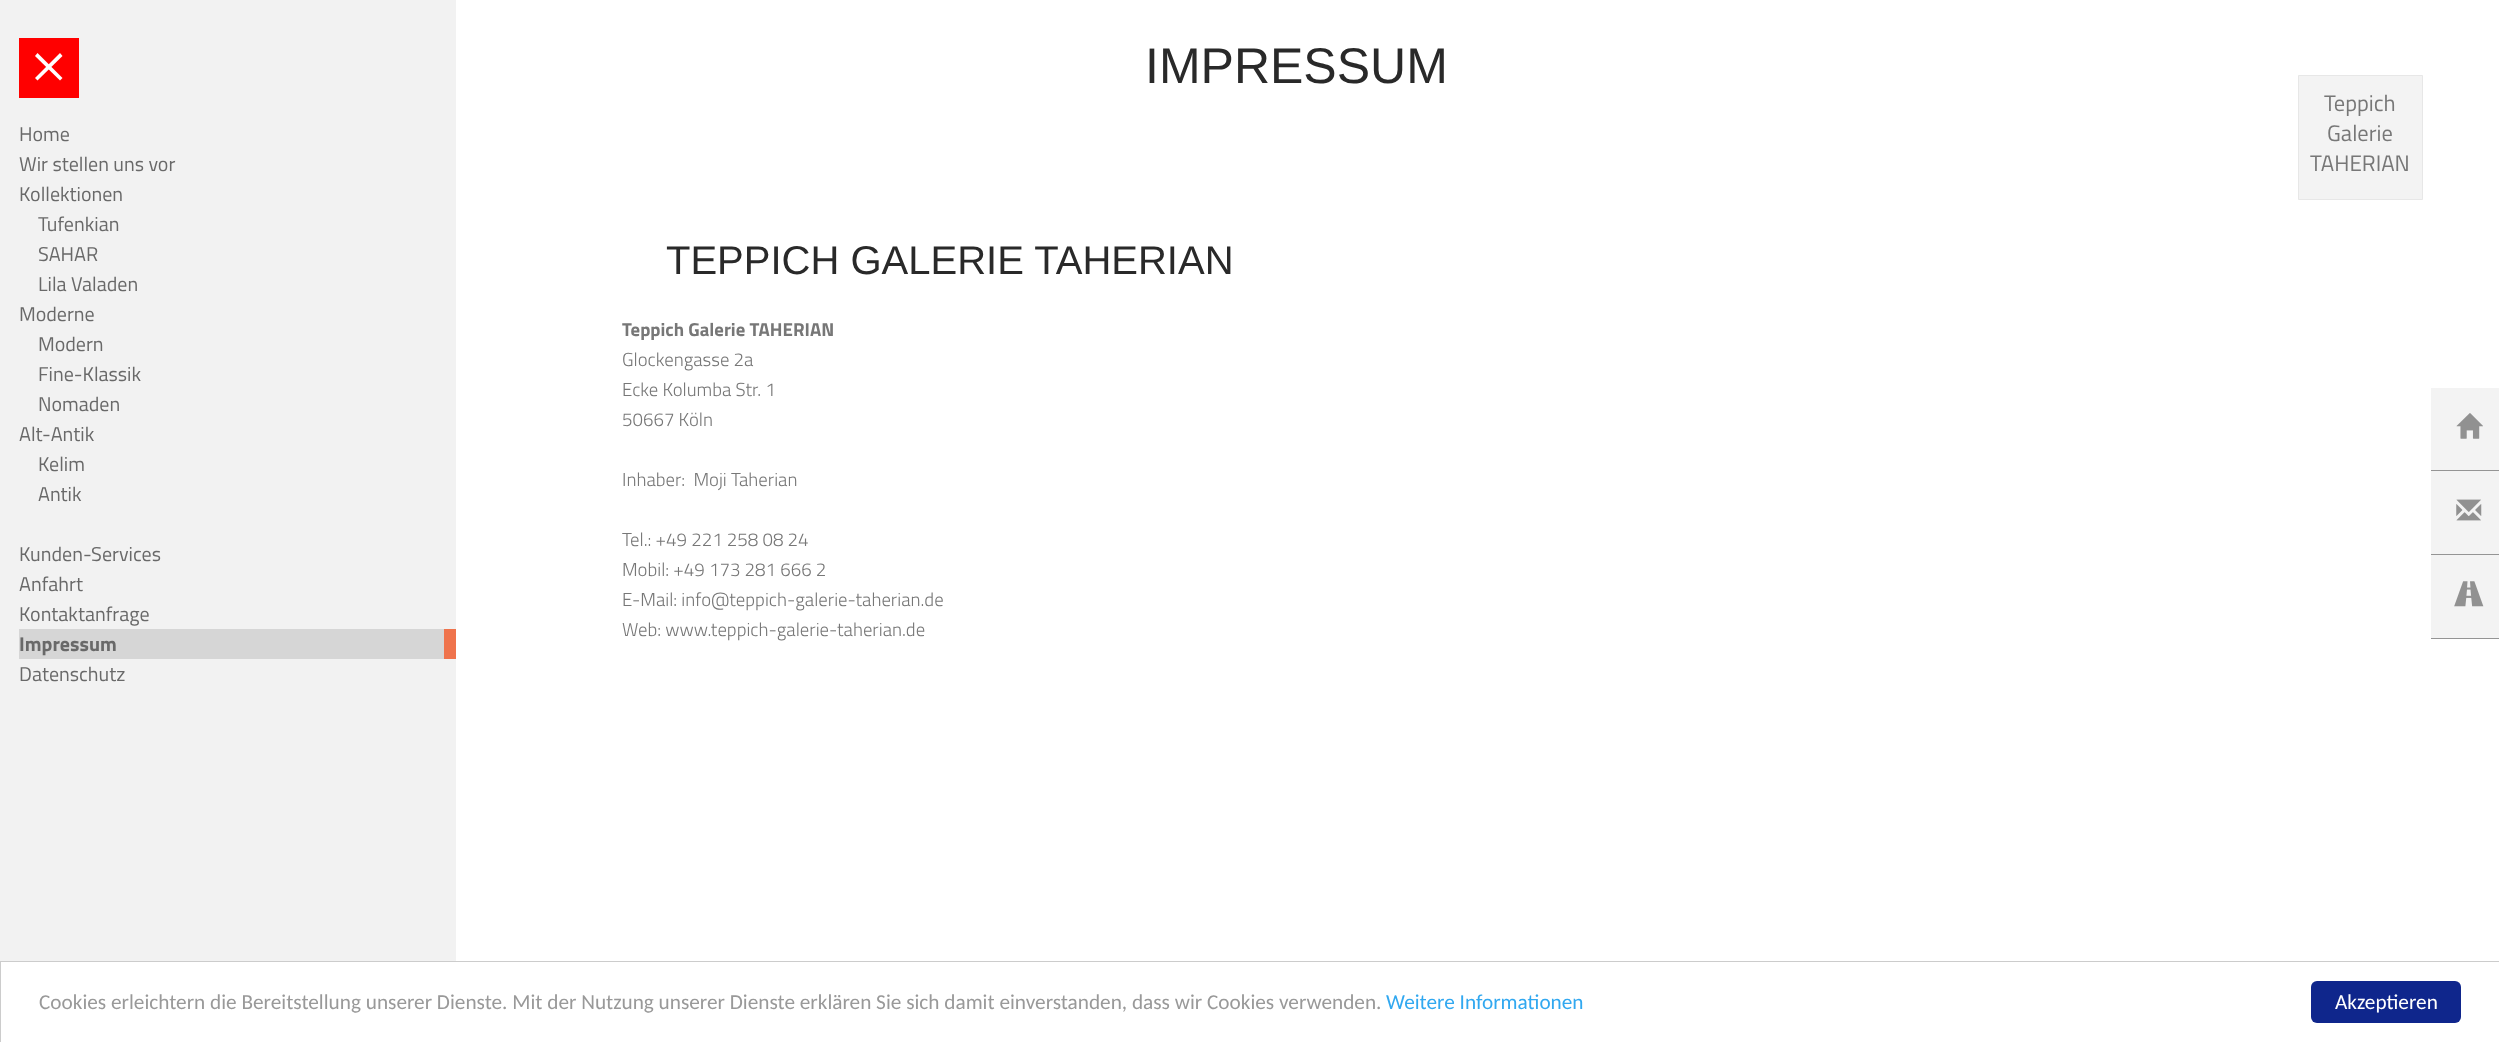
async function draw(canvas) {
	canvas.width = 2499;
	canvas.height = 1042;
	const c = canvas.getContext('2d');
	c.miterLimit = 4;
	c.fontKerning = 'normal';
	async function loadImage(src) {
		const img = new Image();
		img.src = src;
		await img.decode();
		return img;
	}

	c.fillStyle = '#fff';
	c.fillRect(0, 0, 2499, 1042);
	c.fillStyle = '#f2f2f2';
	c.fillRect(0, 0, 456, 961);
	c.fillStyle = '#f00';
	c.fillRect(19, 38, 60, 60);
	c.fillStyle = '#fff';
	c.beginPath();
	c.moveTo(35, 78);
	c.lineTo(60, 53);
	c.lineTo(62.5, 56);
	c.lineTo(37.5, 80.5);
	c.closePath();
	c.fill();
	c.beginPath();
	c.moveTo(60, 80.5);
	c.lineTo(35, 56);
	c.lineTo(37.5, 53);
	c.lineTo(62.5, 78);
	c.closePath();
	c.fill();
	c.font = '50px Liberation Sans';
	c.fillStyle = '#292929';
	c.fillText('IMPRESSUM', 1145, 83);
	c.font = '40px Liberation Sans';
	c.fillText('TEPPICH GALERIE TAHERIAN', 666, 274);
	c.font = 'bold 18.75px Titillium Web';
	c.fillStyle = '#777';
	c.fillText('Teppich Galerie TAHERIAN', 622, 336);
	c.font = '300 18.75px Titillium Web';
	for (const [text, x, y] of [
		['Glockengasse 2a', 622, 366],
		['Ecke Kolumba Str. 1', 622, 396],
		['50667 Köln', 622, 426],
		['Inhaber:  Moji Taherian', 622, 486],
		['Tel.: +49 221 258 08 24', 622, 546],
		['Mobil: +49 173 281 666 2', 622, 576],
		['E-Mail: info@teppich-galerie-taherian.de', 622, 606],
		['Web: www.teppich-galerie-taherian.de', 622, 636],
	]) {
		c.fillText(text, x, y);
	}
	c.fillStyle = '#f3f3f3';
	c.beginPath();
	c.rect(2298.5, 75.5, 124, 124);
	c.fill();
	c.strokeStyle = '#e7e7e7';
	c.stroke();
	c.font = '22.5px Titillium Web';
	c.fillStyle = '#777';
	for (const [text, x, y] of [
		['Teppich', 2324, 111],
		['Galerie', 2327, 141],
		['TAHERIAN', 2310, 171],
	]) {
		c.fillText(text, x, y);
	}
	c.font = '20px Titillium Web';
	c.fillStyle = '#696969';
	for (const [text, x, y] of [
		['Home', 19, 141],
		['Wir stellen uns vor', 19, 171],
		['Kollektionen', 19, 201],
		['Tufenkian', 38, 231],
		['SAHAR', 38, 261],
		['Lila Valaden', 38, 291],
		['Moderne', 19, 321],
		['Modern', 38, 351],
		['Fine-Klassik', 38, 381],
		['Nomaden', 38, 411],
		['Alt-Antik', 19, 441],
		['Kelim', 38, 471],
		['Antik', 38, 501],
		['Kunden-Services', 19, 561],
		['Anfahrt', 19, 591],
		['Kontaktanfrage', 19, 621],
	]) {
		c.fillText(text, x, y);
	}
	c.fillStyle = '#d6d6d6';
	c.fillRect(19, 629, 425, 30);
	c.fillStyle = '#ef734c';
	c.fillRect(444, 629, 12, 30);
	c.font = 'bold 20px Titillium Web';
	c.fillStyle = '#696969';
	c.fillText('Impressum', 19, 651);
	c.font = '20px Titillium Web';
	c.fillText('Datenschutz', 19, 681);
	c.fillStyle = '#f3f3f3';
	c.fillRect(2431, 388, 68, 250);
	c.fillStyle = '#949494';
	c.fillRect(2431, 470, 68, 1);
	c.drawImage(await loadImage('img1.png'), 2456, 413, 27, 26);
	c.fillRect(2431, 554, 68, 1);
	c.drawImage(await loadImage('img2.png'), 2456, 499, 26, 22);
	c.fillRect(2431, 638, 68, 1);
	c.drawImage(await loadImage('img3.png'), 2454, 581, 30, 26);
	c.strokeStyle = '#ccc';
	c.strokeRect(0.5, 961.5, 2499, 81);
	c.font = '21.25px Carlito';
	c.fillStyle = '#999';
	c.fillText('Cookies erleichtern die Bereitstellung unserer Dienste. Mit der Nutzung unserer Dienste erklären Sie sich damit einverstanden, dass wir Cookies verwenden.', 39, 1009);
	c.fillStyle = '#31a8f0';
	c.fillText('Weitere Informationen', 1386, 1009);
	c.fillStyle = '#0f268c';
	c.beginPath();
	c.roundRect(2311, 981, 150, 42, 6);
	c.fill();
	c.fillStyle = '#fff';
	c.fillText('Akzeptieren', 2335, 1009);
}

draw(document.querySelector('canvas'));
